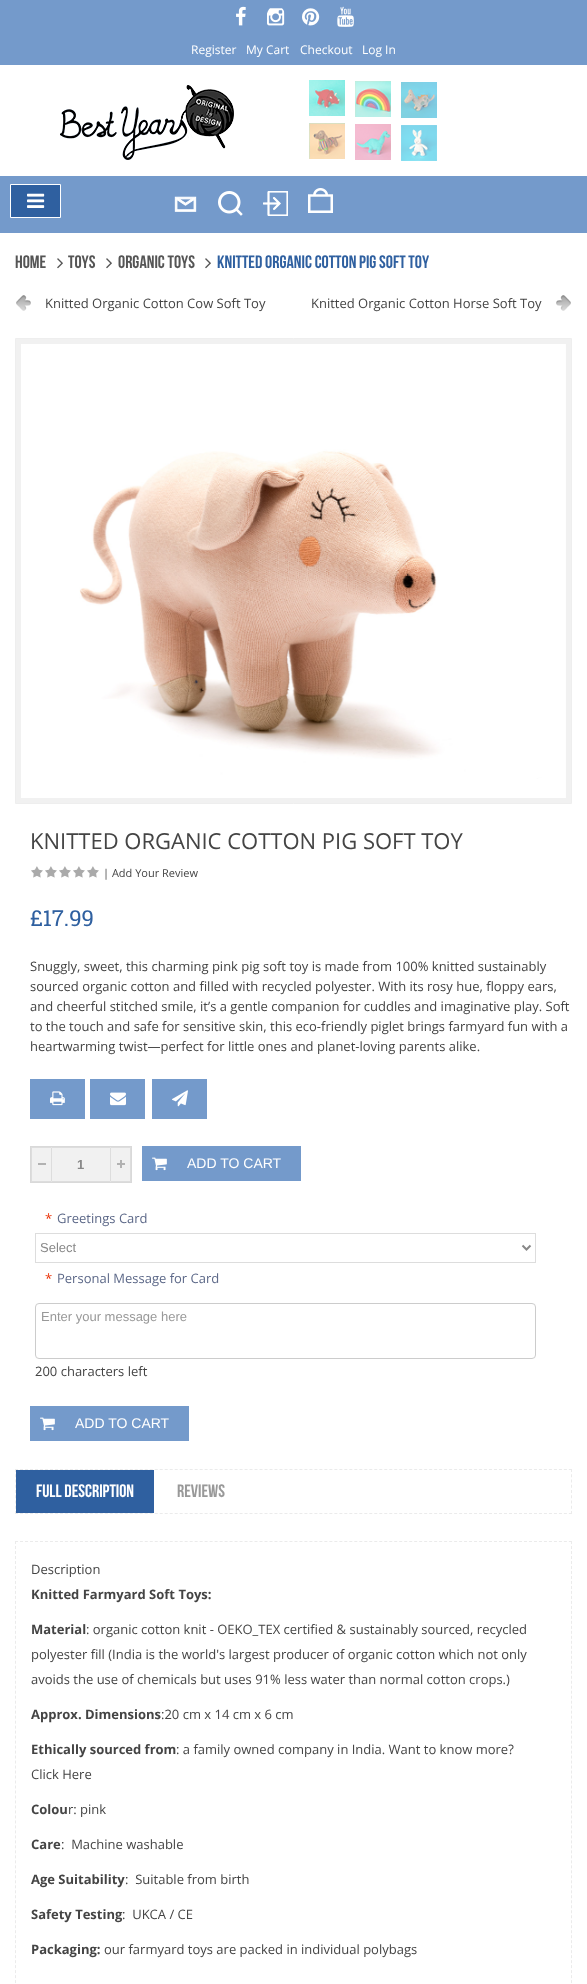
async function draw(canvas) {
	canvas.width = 587;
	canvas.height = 1984;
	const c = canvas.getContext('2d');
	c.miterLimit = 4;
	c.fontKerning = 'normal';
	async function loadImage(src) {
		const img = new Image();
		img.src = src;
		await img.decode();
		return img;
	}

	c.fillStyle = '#fff';
	c.fillRect(0, 0, 587, 1984);
	c.fillStyle = '#749acb';
	c.fillRect(0, 0, 587, 65);
	c.drawImage(await loadImage('img1.png'), 236, 6, 10, 20);
	c.drawImage(await loadImage('img2.png'), 267, 8, 18, 18);
	c.drawImage(await loadImage('img3.png'), 302, 8, 18, 18);
	c.drawImage(await loadImage('img4.png'), 337, 6, 17, 21);
	c.font = '12px Open Sans';
	c.fillStyle = '#fff';
	for (const [text, x, y] of [
		['Register', 191, 54],
		['My Cart', 246, 54],
		['Checkout', 300, 54],
		['Log In', 362, 54],
	]) {
		c.fillText(text, x, y);
	}
	c.drawImage(await loadImage('img5.png'), 60, 85, 174, 75);
	c.drawImage(await loadImage('img6.png'), 309, 80, 36, 36);
	c.drawImage(await loadImage('img7.png'), 355, 81, 36, 36);
	c.drawImage(await loadImage('img8.png'), 401, 82, 36, 36);
	c.drawImage(await loadImage('img9.png'), 309, 123, 36, 36);
	c.drawImage(await loadImage('img10.png'), 355, 124, 36, 36);
	c.drawImage(await loadImage('img11.png'), 401, 125, 36, 36);
	c.fillStyle = '#749acb';
	c.fillRect(0, 176, 587, 57);
	c.fillStyle = '#2f60a0';
	c.beginPath();
	c.rect(10.5, 184.5, 50, 33);
	c.fill();
	c.strokeStyle = '#fff';
	c.stroke();
	c.drawImage(await loadImage('img12.png'), 27, 193, 18, 15);
	c.drawImage(await loadImage('img13.png'), 174, 196, 23, 16);
	c.drawImage(await loadImage('img14.png'), 218, 191, 25, 25);
	c.drawImage(await loadImage('img15.png'), 263, 191, 25, 25);
	c.drawImage(await loadImage('img16.png'), 308, 188, 25, 25);
	c.font = '18px Bebas Neue';
	c.fillStyle = '#555';
	c.fillText('Home', 15, 268);
	c.drawImage(await loadImage('img17.png'), 57, 258, 6, 11);
	c.fillText('Toys', 68, 268);
	c.drawImage(await loadImage('img17.png'), 106, 258, 6, 11);
	c.fillText('Organic Toys', 118, 268);
	c.drawImage(await loadImage('img17.png'), 205, 258, 6, 11);
	c.fillStyle = '#2f60a0';
	c.fillText('Knitted Organic Cotton Pig Soft Toy', 217, 268);
	c.drawImage(await loadImage('img18.png'), 16, 295, 15, 16);
	c.font = '13px Open Sans';
	c.fillStyle = '#444';
	c.fillText('Knitted Organic Cotton Cow Soft Toy', 45, 308);
	c.drawImage(await loadImage('img19.png'), 556, 295, 15, 16);
	c.fillText('Knitted Organic Cotton Horse Soft Toy', 311, 308);
	c.fillStyle = '#f1f1f1';
	c.beginPath();
	c.rect(15.5, 338.5, 556, 465);
	c.fill();
	c.strokeStyle = '#eee';
	c.stroke();
	c.drawImage(await loadImage('img20.png'), 21, 344, 545, 454);
	c.font = '22px Open Sans';
	c.fillStyle = '#444';
	c.fillText('KNITTED ORGANIC COTTON PIG SOFT TOY', 30, 849);
	c.drawImage(await loadImage('img21.png'), 31, 866, 68, 12);
	c.font = '11px Open Sans';
	c.fillText('| Add Your Review', 103, 877);
	c.font = '22px Roboto Slab';
	c.fillStyle = '#2f60a0';
	c.fillText('£17.99', 30, 926);
	c.font = '13px Open Sans';
	c.fillStyle = '#444';
	for (const [text, x, y] of [
		['Snuggly, sweet, this charming pink pig soft toy is made from 100% knitted sustainably', 30, 971],
		['sourced organic cotton and filled with recycled polyester. With its rosy hue, floppy ears,', 30, 991],
		['and cheerful stitched smile, it’s a gentle companion for cuddles and imaginative play. Soft', 30, 1011],
		['to the touch and safe for sensitive skin, this eco-friendly piglet brings farmyard fun with a', 30, 1031],
		['heartwarming twist—perfect for little ones and planet-loving parents alike.', 30, 1051],
	]) {
		c.fillText(text, x, y);
	}
	c.fillStyle = '#749acb';
	c.fillRect(30, 1079, 55, 40);
	c.drawImage(await loadImage('img22.png'), 50, 1091, 15, 15);
	c.fillRect(90, 1079, 55, 40);
	c.drawImage(await loadImage('img23.png'), 110, 1092, 16, 14);
	c.fillRect(152, 1079, 55, 40);
	c.drawImage(await loadImage('img24.png'), 172, 1090, 16, 17);
	c.strokeStyle = '#d9d9d9';
	c.strokeRect(30.5, 1146.5, 101, 36);
	for (const [x, y, w, h, color] of [
		[32, 1148, 19, 33, '#f1f1f1'],
		[38, 1163, 8, 2, '#b2b2b2'],
		[31, 1147, 20, 1, '#ddd'],
		[31, 1181, 20, 1, '#ddd'],
		[31, 1147, 1, 35, '#ddd'],
	]) {
		c.fillStyle = color;
		c.fillRect(x, y, w, h);
	}
	c.fillStyle = '#f1f1f1';
	c.beginPath();
	c.rect(51.5, 1147.5, 59, 34);
	c.fill();
	c.strokeStyle = '#ddd';
	c.stroke();
	c.font = 'bold 13px Liberation Sans';
	c.fillStyle = '#888';
	c.fillText('1', 77, 1169);
	c.fillStyle = '#f1f1f1';
	c.fillRect(111, 1148, 19, 33);
	c.drawImage(await loadImage('img25.png'), 117, 1160, 8, 8);
	for (const [x, y, w, h, color] of [
		[111, 1147, 20, 1, '#ddd'],
		[130, 1147, 1, 35, '#ddd'],
		[111, 1181, 20, 1, '#ddd'],
		[142, 1146, 159, 35, '#749acb'],
	]) {
		c.fillStyle = color;
		c.fillRect(x, y, w, h);
	}
	c.drawImage(await loadImage('img26.png'), 152, 1157, 15, 14);
	c.font = '14px Liberation Sans';
	c.fillStyle = '#fff';
	c.fillText('ADD TO CART', 187, 1168);
	c.font = '13px Open Sans';
	c.fillStyle = '#eb340a';
	c.fillText('*', 45, 1223);
	c.fillStyle = '#5c6888';
	c.fillText('Greetings Card', 57, 1223);
	c.strokeRect(35.5, 1233.5, 500, 29);
	c.beginPath();
	c.moveTo(522.5, 1245.5);
	c.lineTo(526.5, 1249.5);
	c.lineTo(530.5, 1245.5);
	c.strokeStyle = '#888';
	c.lineWidth = 2;
	c.stroke();
	c.font = '13px Liberation Sans';
	c.fillStyle = '#888';
	c.fillText('Select', 40, 1252);
	c.font = '13px Open Sans';
	c.fillStyle = '#eb340a';
	c.fillText('*', 45, 1283);
	c.fillStyle = '#5c6888';
	c.fillText('Personal Message for Card', 57, 1283);
	c.beginPath();
	c.roundRect(35.5, 1303.5, 500, 55, 3.5);
	c.strokeStyle = '#ccc';
	c.lineWidth = 1;
	c.stroke();
	c.font = '13px Liberation Sans';
	c.fillStyle = '#999';
	c.fillText('Enter your message here', 41, 1321);
	c.font = '13px Open Sans';
	c.fillStyle = '#444';
	c.fillText('200 characters left', 35, 1376);
	c.fillStyle = '#749acb';
	c.fillRect(30, 1406, 159, 35);
	c.drawImage(await loadImage('img26.png'), 40, 1417, 15, 14);
	c.font = '14px Liberation Sans';
	c.fillStyle = '#fff';
	c.fillText('ADD TO CART', 75, 1428);
	c.beginPath();
	c.moveTo(15, 1469.5);
	c.lineTo(572, 1469.5);
	c.strokeStyle = '#ebebeb';
	c.setLineDash([3, 1.99]);
	c.stroke();
	c.beginPath();
	c.moveTo(571.5, 1469);
	c.lineTo(571.5, 1514);
	c.setLineDash([3, 2.25]);
	c.stroke();
	c.beginPath();
	c.moveTo(15, 1513.5);
	c.lineTo(572, 1513.5);
	c.setLineDash([3, 1.99]);
	c.stroke();
	c.beginPath();
	c.moveTo(15.5, 1469);
	c.lineTo(15.5, 1514);
	c.setLineDash([3, 2.25]);
	c.stroke();
	c.fillStyle = '#2f60a0';
	c.fillRect(16, 1470, 138, 43);
	c.font = '18px Bebas Neue';
	c.fillStyle = '#fff';
	c.fillText('FULL DESCRIPTION', 36, 1497);
	c.fillStyle = '#999';
	c.fillText('REVIEWS', 177, 1497);
	c.beginPath();
	c.moveTo(15, 1541.5);
	c.lineTo(572, 1541.5);
	c.setLineDash([3, 1.99]);
	c.stroke();
	c.beginPath();
	c.moveTo(571.5, 1541);
	c.lineTo(571.5, 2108);
	c.stroke();
	c.beginPath();
	c.moveTo(15.5, 1541);
	c.lineTo(15.5, 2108);
	c.stroke();
	c.font = '13px Open Sans';
	c.fillStyle = '#444';
	c.fillText('Description', 31, 1574);
	c.font = 'bold 13px Open Sans';
	c.fillText('Knitted Farmyard Soft Toys:', 31, 1599);
	c.fillText('Material', 31, 1634);
	c.font = '13px Open Sans';
	for (const [text, x, y] of [
		[': organic cotton knit - OEKO_TEX certified & sustainably sourced, recycled', 86, 1634],
		['polyester fill (India is the world\'s largest producer of organic cotton which not only', 31, 1659],
		['avoids the use of chemicals but uses 91% less water than normal cotton crops.)', 31, 1684],
	]) {
		c.fillText(text, x, y);
	}
	c.font = 'bold 13px Open Sans';
	c.fillText('Approx. Dimensions', 31, 1719);
	c.font = '13px Open Sans';
	c.fillText(':20 cm x 14 cm x 6 cm', 161, 1719);
	c.font = 'bold 13px Open Sans';
	c.fillText('Ethically sourced from', 31, 1754);
	c.font = '13px Open Sans';
	c.fillText(': a family owned company in India. Want to know more?', 176, 1754);
	c.fillText('Click Here', 31, 1779);
	c.font = 'bold 13px Open Sans';
	c.fillText('Colou', 31, 1814);
	c.font = '13px Open Sans';
	c.fillText('r: pink', 68, 1814);
	c.font = 'bold 13px Open Sans';
	c.fillText('Care', 31, 1849);
	c.font = '13px Open Sans';
	c.fillText(':  Machine washable', 61, 1849);
	c.font = 'bold 13px Open Sans';
	c.fillText('Age Suitability', 31, 1884);
	c.font = '13px Open Sans';
	c.fillText(':  Suitable from birth', 125, 1884);
	c.font = 'bold 13px Open Sans';
	c.fillText('Safety Testing', 31, 1919);
	c.font = '13px Open Sans';
	c.fillText(':  UKCA / CE', 122, 1919);
	c.font = 'bold 13px Open Sans';
	c.fillText('Packaging:', 31, 1954);
	c.font = '13px Open Sans';
	c.fillText('our farmyard toys are packed in individual polybags', 104, 1954);
}

draw(document.querySelector('canvas'));
